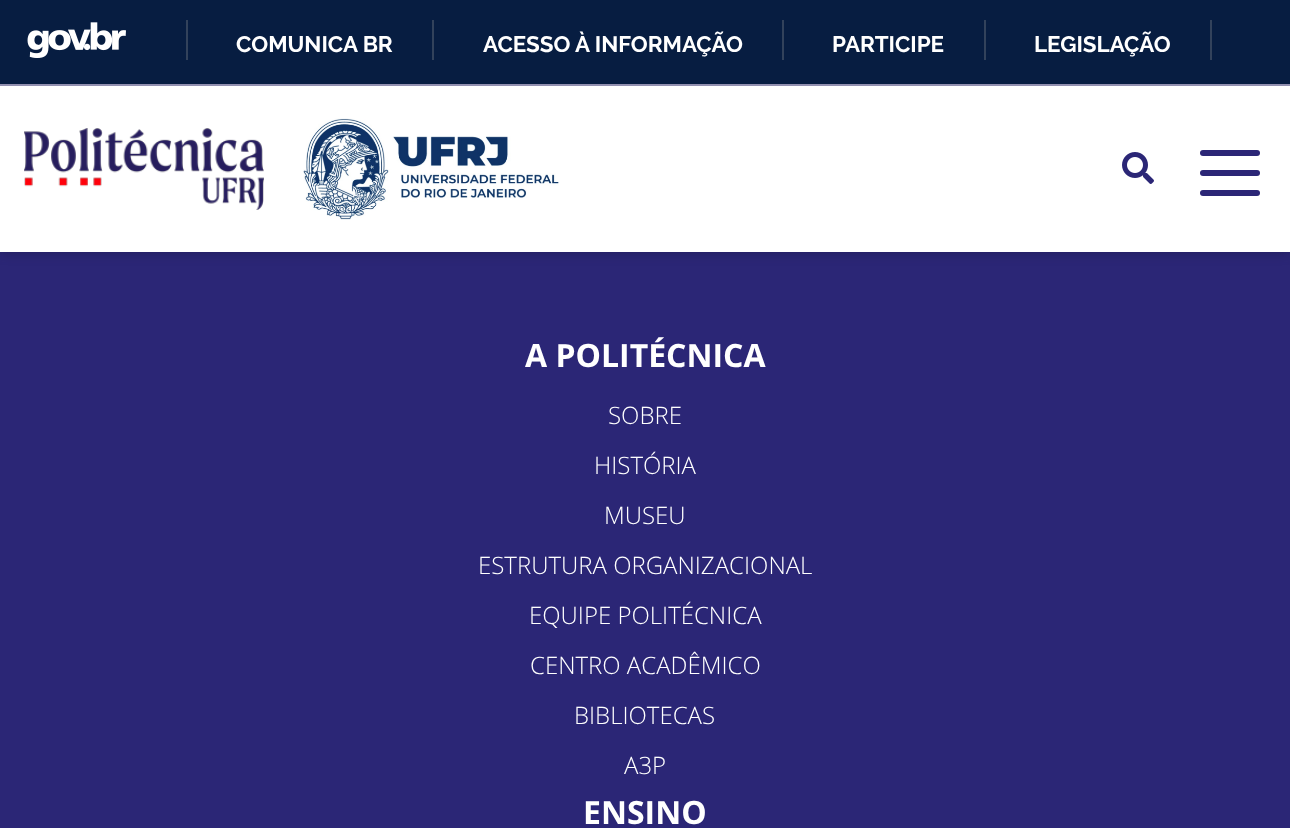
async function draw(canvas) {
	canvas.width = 1290;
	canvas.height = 828;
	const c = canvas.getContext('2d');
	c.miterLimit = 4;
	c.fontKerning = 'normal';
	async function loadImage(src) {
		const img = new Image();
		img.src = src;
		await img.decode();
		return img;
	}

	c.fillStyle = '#2b2676';
	c.fillRect(0, 0, 1290, 828);
	c.fillStyle = '#1c194fb3';
	c.filter = 'blur(6px)';
	c.beginPath();
	c.rect(0, 0, 1290, 252);
	c.fill();
	c.filter = 'none';
	for (const [x, y, w, h, color] of [
		[0, 86, 1290, 166, '#fff'],
		[0, 84, 1290, 2, '#9290b0'],
		[0, 0, 1290, 84, '#071d41'],
	]) {
		c.fillStyle = color;
		c.fillRect(x, y, w, h);
	}
	c.drawImage(await loadImage('img1.png'), 27, 22, 99, 36);
	c.fillStyle = '#32425b';
	c.fillRect(186, 20, 2, 40);
	c.font = 'bold 22.4px Raleway';
	c.fillStyle = '#fff';
	c.fillText('COMUNICA BR', 236, 52);
	c.fillStyle = '#32425b';
	c.fillRect(432, 20, 2, 40);
	c.fillStyle = '#fff';
	c.fillText('ACESSO À INFORMAÇÃO', 483, 52);
	c.fillStyle = '#32425b';
	c.fillRect(782, 20, 2, 40);
	c.fillStyle = '#fff';
	c.fillText('PARTICIPE', 832, 52);
	c.fillStyle = '#32425b';
	c.fillRect(984, 20, 2, 40);
	c.fillStyle = '#fff';
	c.fillText('LEGISLAÇÃO', 1034, 52);
	c.fillStyle = '#32425b';
	c.fillRect(1210, 20, 2, 40);
	c.drawImage(await loadImage('img2.png'), 24, 128, 240, 82);
	c.drawImage(await loadImage('img3.png'), 303, 118, 256, 102);
	c.drawImage(await loadImage('img4.png'), 1122, 152, 32, 32);
	c.fillStyle = '#2b2676';
	c.beginPath();
	c.roundRect(1200, 150, 60, 6, 3);
	c.fill();
	c.beginPath();
	c.roundRect(1200, 170, 60, 6, 3);
	c.fill();
	c.beginPath();
	c.roundRect(1200, 190, 60, 6, 3);
	c.fill();
	c.font = 'bold 32px Open Sans';
	c.fillStyle = '#fff';
	c.fillText('A POLITÉCNICA', 525, 367);
	c.font = '300 24px Open Sans';
	for (const [text, x, y] of [
		['SOBRE', 608, 424],
		['HISTÓRIA', 594, 474],
		['MUSEU', 604, 524],
		['ESTRUTURA ORGANIZACIONAL', 478, 574],
		['EQUIPE POLITÉCNICA', 529, 624],
		['CENTRO ACADÊMICO', 530, 674],
		['BIBLIOTECAS', 574, 724],
		['A3P', 624, 774],
	]) {
		c.fillText(text, x, y);
	}
	c.font = 'bold 32px Open Sans';
	c.fillText('ENSINO', 583, 824);
}

draw(document.querySelector('canvas'));
